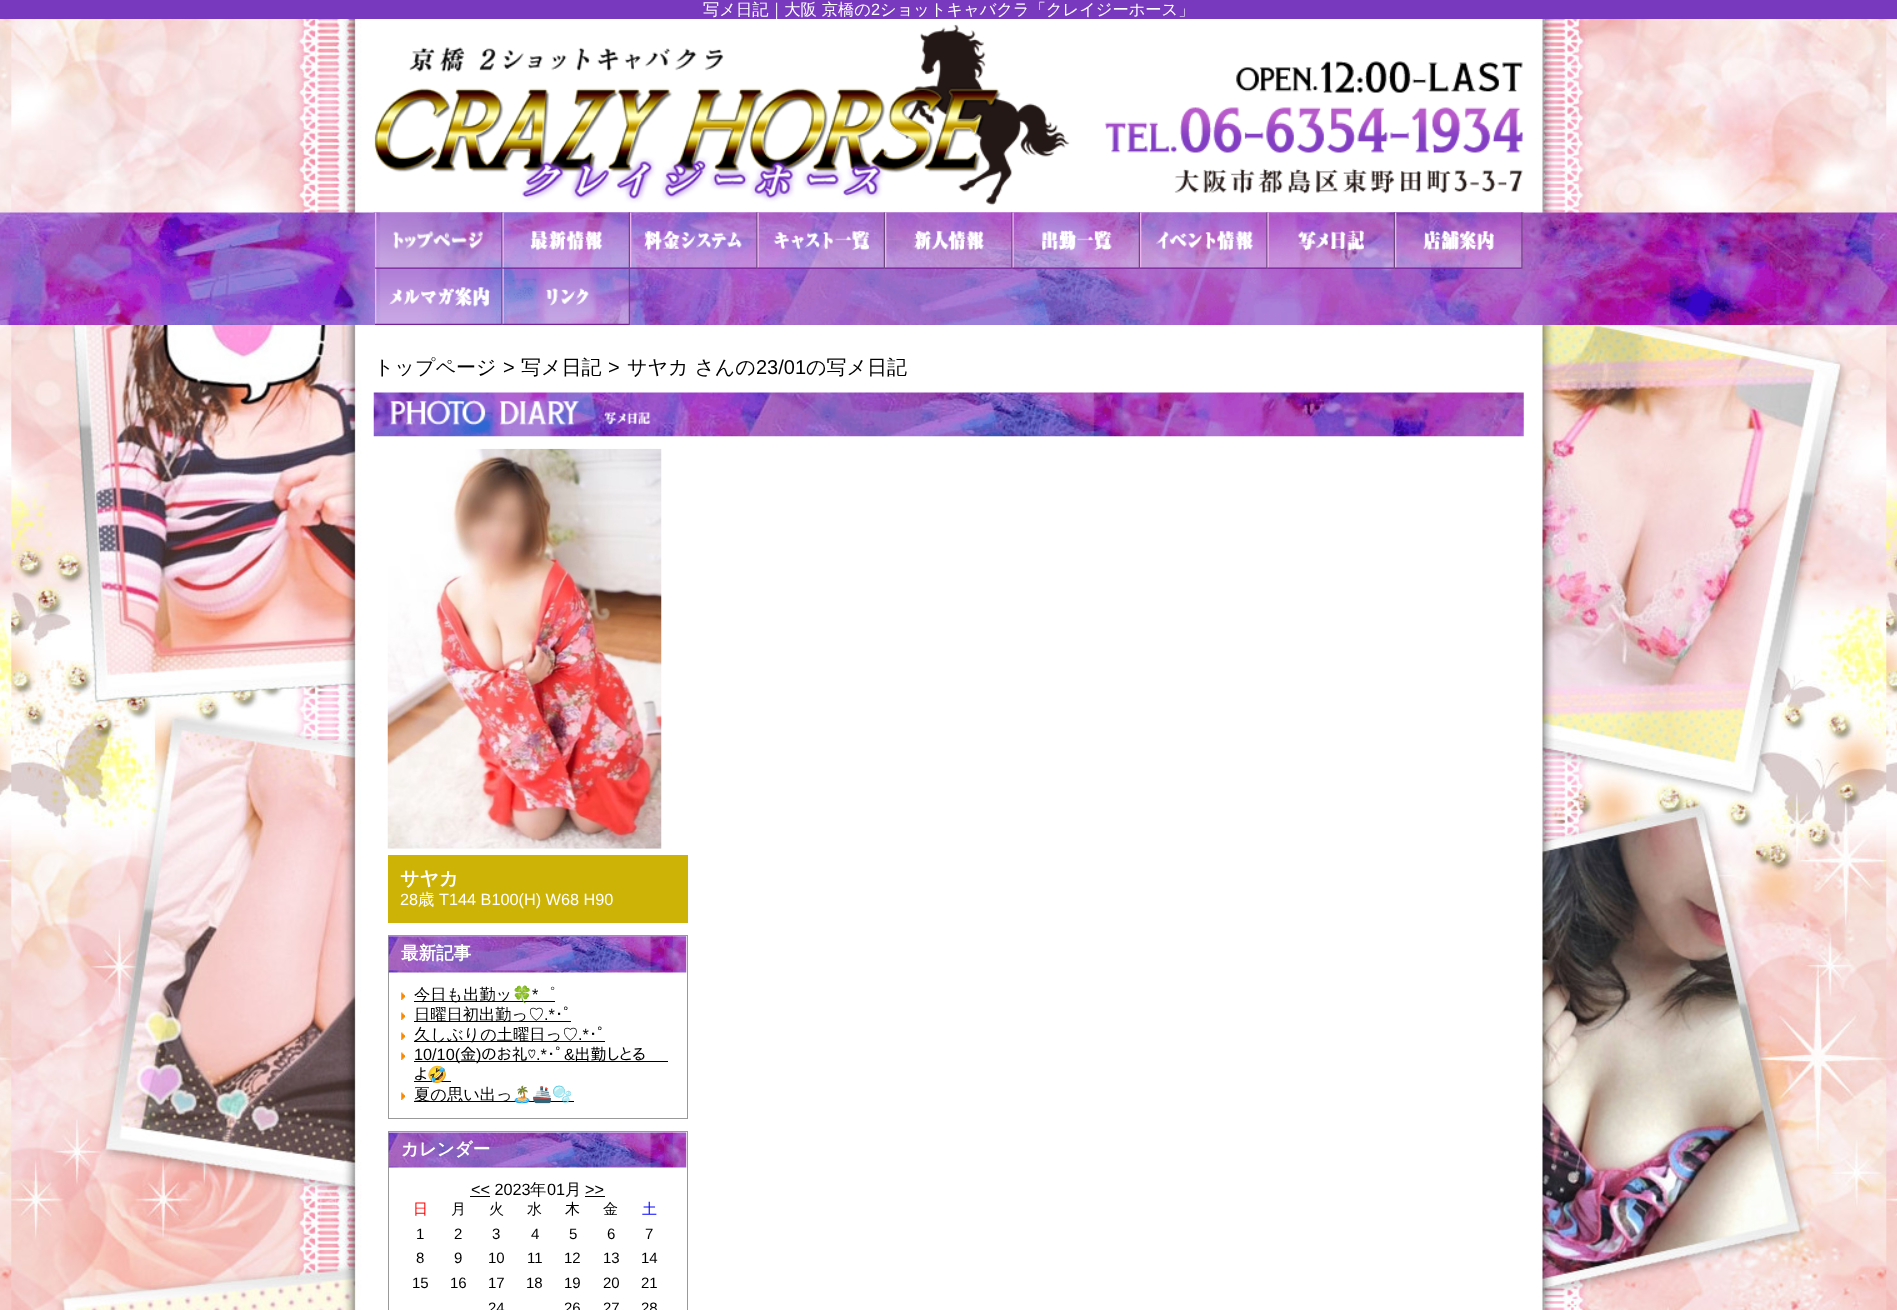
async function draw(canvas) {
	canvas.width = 1897;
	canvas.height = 1310;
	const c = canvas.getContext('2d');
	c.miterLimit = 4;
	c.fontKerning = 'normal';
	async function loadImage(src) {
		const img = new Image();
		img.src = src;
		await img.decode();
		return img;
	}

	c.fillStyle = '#fff';
	c.fillRect(0, 0, 1897, 1310);
	c.drawImage(await loadImage('img1.png'), 0, 19, 1897, 1291);
	c.fillStyle = '#7839bf';
	c.fillRect(0, 0, 1897, 19);
	c.font = '500 16.25px WenQuanYi Zen Hei';
	c.fillStyle = '#fff';
	c.fillText('写メ日記｜大阪 京橋の', 703, 15);
	c.font = '16.25px Liberation Sans';
	c.fillText('2', 871, 15);
	c.font = '500 16.25px WenQuanYi Zen Hei';
	c.fillText('ショットキャバクラ「クレイジーホース」', 880, 15);
	c.drawImage(await loadImage('img2.png'), 374, 24, 1149, 182);
	c.drawImage(await loadImage('img3.png'), 0, 212, 1897, 113);
	c.drawImage(await loadImage('img4.png'), 373, 212, 1151, 1);
	c.drawImage(await loadImage('img5.png'), 393, 231, 90, 17);
	c.drawImage(await loadImage('img6.png'), 375, 212, 128, 57);
	c.drawImage(await loadImage('img7.png'), 530, 230, 73, 21);
	c.drawImage(await loadImage('img8.png'), 502, 212, 128, 57);
	c.drawImage(await loadImage('img9.png'), 643, 231, 99, 20);
	c.drawImage(await loadImage('img10.png'), 630, 212, 128, 57);
	c.drawImage(await loadImage('img11.png'), 773, 230, 97, 21);
	c.drawImage(await loadImage('img12.png'), 757, 212, 128, 57);
	c.drawImage(await loadImage('img13.png'), 913, 230, 71, 21);
	c.drawImage(await loadImage('img14.png'), 885, 212, 128, 57);
	c.drawImage(await loadImage('img15.png'), 1041, 230, 71, 21);
	c.drawImage(await loadImage('img16.png'), 1012, 212, 128, 57);
	c.drawImage(await loadImage('img17.png'), 1156, 231, 97, 20);
	c.drawImage(await loadImage('img18.png'), 1140, 212, 128, 57);
	c.drawImage(await loadImage('img19.png'), 1298, 230, 66, 21);
	c.drawImage(await loadImage('img20.png'), 1267, 212, 128, 57);
	c.drawImage(await loadImage('img21.png'), 1423, 230, 71, 21);
	c.drawImage(await loadImage('img22.png'), 1395, 212, 128, 57);
	c.drawImage(await loadImage('img23.png'), 389, 287, 101, 20);
	c.drawImage(await loadImage('img24.png'), 375, 268, 128, 57);
	c.drawImage(await loadImage('img25.png'), 546, 288, 43, 18);
	c.drawImage(await loadImage('img26.png'), 502, 268, 128, 57);
	c.font = '500 20px WenQuanYi Zen Hei';
	c.fillStyle = '#000';
	c.fillText('トップページ', 374, 374);
	c.font = '20px Liberation Sans';
	c.fillText('>', 503, 374);
	c.font = '500 20px WenQuanYi Zen Hei';
	c.fillText('写メ日記', 521, 374);
	c.font = '20px Liberation Sans';
	c.fillText('>', 608, 374);
	c.font = '500 20px WenQuanYi Zen Hei';
	c.fillText('サヤカ さんの', 627, 374);
	c.font = '20px Liberation Sans';
	c.fillText('23/01', 756, 374);
	c.font = '500 20px WenQuanYi Zen Hei';
	c.fillText('の写メ日記', 806, 374);
	c.drawImage(await loadImage('img27.png'), 373, 392, 1151, 45);
	c.drawImage(await loadImage('img28.png'), 390, 400, 261, 26);
	c.drawImage(await loadImage('img29.png'), 387, 448, 275, 401);
	c.fillStyle = '#cdb306';
	c.fillRect(388, 855, 300, 68);
	c.font = 'bold 19px WenQuanYi Zen Hei';
	c.fillStyle = '#fff';
	c.fillText('サヤカ', 400, 885);
	c.font = '16.25px Liberation Sans';
	c.fillText('28', 400, 905);
	c.font = '500 16.25px WenQuanYi Zen Hei';
	c.fillText('歳', 418, 905);
	c.font = '16.25px Liberation Sans';
	c.fillText('T144 B100(H) W68 H90', 439, 905);
	c.strokeStyle = '#999';
	c.strokeRect(388.5, 935.5, 299, 183);
	c.drawImage(await loadImage('img30.png'), 388, 936, 299, 37);
	c.font = 'bold 17.5px WenQuanYi Zen Hei';
	c.fillText('最新記事', 401, 959);
	c.drawImage(await loadImage('img31.png'), 401, 992, 4, 8);
	c.fillStyle = '#000';
	c.fillRect(414, 1001, 141, 1);
	c.font = '500 16.25px WenQuanYi Zen Hei';
	c.fillText('今日も出勤ッ', 414, 1000);
	c.font = '16.25px Noto Color Emoji';
	c.fillText('🍀', 512, 1000);
	c.font = '16.25px Liberation Sans';
	c.fillText('*', 532, 1000);
	c.font = '500 16.25px WenQuanYi Zen Hei';
	c.fillText('゜', 539, 1000);
	c.drawImage(await loadImage('img31.png'), 401, 1012, 4, 8);
	c.fillRect(414, 1021, 157, 1);
	c.fillText('日曜日初出勤っ♡', 414, 1020);
	c.font = '16.25px Liberation Sans';
	c.fillText('.*', 544, 1020);
	c.font = '16.25px IPAPGothic';
	c.fillText('･ﾟ', 555, 1020);
	c.drawImage(await loadImage('img31.png'), 401, 1032, 4, 8);
	c.fillRect(414, 1041, 191, 1);
	c.font = '500 16.25px WenQuanYi Zen Hei';
	c.fillText('久しぶりの土曜日っ♡', 414, 1040);
	c.font = '16.25px Liberation Sans';
	c.fillText('.*', 578, 1040);
	c.font = '16.25px IPAPGothic';
	c.fillText('･ﾟ', 589, 1040);
	c.drawImage(await loadImage('img31.png'), 401, 1052, 4, 8);
	c.fillRect(414, 1061, 254, 1);
	c.font = '16.25px Liberation Sans';
	c.fillText('10/10(', 414, 1060);
	c.font = '16.25px IPAPGothic';
	c.fillText('金', 460, 1060);
	c.font = '16.25px Liberation Sans';
	c.fillText(')', 476, 1060);
	c.font = '16.25px IPAPGothic';
	c.fillText('のお礼♡', 481, 1060);
	c.font = '16.25px Liberation Sans';
	c.fillText('.*', 536, 1060);
	c.font = '16.25px IPAPGothic';
	c.fillText('･ﾟ', 547, 1060);
	c.font = '16.25px Liberation Sans';
	c.fillText('&', 564, 1060);
	c.font = '16.25px IPAPGothic';
	c.fillText('出勤しとる', 574, 1060);
	c.fillText('よ', 414, 1080);
	c.fillRect(414, 1081, 37, 1);
	c.font = '16.25px Noto Color Emoji';
	c.fillText('🤣', 427, 1080);
	c.drawImage(await loadImage('img31.png'), 401, 1092, 4, 8);
	c.fillRect(414, 1101, 160, 1);
	c.font = '500 16.25px WenQuanYi Zen Hei';
	c.fillText('夏の思い出っ', 414, 1100);
	c.font = '16.25px Noto Color Emoji';
	c.fillText('🏝🚢🫧', 512, 1100);
	c.strokeRect(388.5, 1131.5, 299, 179);
	c.drawImage(await loadImage('img32.png'), 388, 1132, 299, 36);
	c.font = 'bold 17.5px WenQuanYi Zen Hei';
	c.fillStyle = '#fff';
	c.fillText('カレンダー', 401, 1155);
	c.font = '16.25px Liberation Sans';
	c.fillStyle = '#000';
	c.fillText('<< 2023', 471, 1195);
	c.fillRect(470, 1196, 20, 1);
	c.font = '500 16.25px WenQuanYi Zen Hei';
	c.fillText('年', 530, 1195);
	c.font = '16.25px Liberation Sans';
	c.fillText('01', 547, 1195);
	c.font = '500 16.25px WenQuanYi Zen Hei';
	c.fillText('月', 565, 1195);
	c.font = '16.25px Liberation Sans';
	c.fillText('>>', 585, 1195);
	c.fillRect(585, 1196, 20, 1);
	c.font = '500 15px WenQuanYi Zen Hei';
	c.fillStyle = '#f00';
	c.fillText('日', 413, 1214);
	c.fillStyle = '#000';
	for (const [text, x, y] of [
		['月', 451, 1214],
		['火', 489, 1214],
		['水', 527, 1214],
		['木', 565, 1214],
		['金', 603, 1214],
	]) {
		c.fillText(text, x, y);
	}
	c.fillStyle = '#00f';
	c.fillText('土', 642, 1214);
	c.font = '15px Liberation Sans';
	c.fillStyle = '#000';
	for (const [text, x, y] of [
		['1', 416, 1239],
		['2', 454, 1239],
		['3', 492, 1239],
		['4', 531, 1239],
		['5', 569, 1239],
		['6', 607, 1239],
		['7', 645, 1239],
		['8', 416, 1263],
		['9', 454, 1263],
		['10', 488, 1263],
		['11', 527, 1263],
		['12', 564, 1263],
		['13', 603, 1263],
		['14', 641, 1263],
		['15', 412, 1288],
		['16', 450, 1288],
		['17', 488, 1288],
		['18', 526, 1288],
		['19', 564, 1288],
		['20', 603, 1288],
		['21', 641, 1288],
		['24', 488, 1313],
		['26', 564, 1313],
		['27', 603, 1313],
		['28', 641, 1313],
	]) {
		c.fillText(text, x, y);
	}
}

draw(document.querySelector('canvas'));
